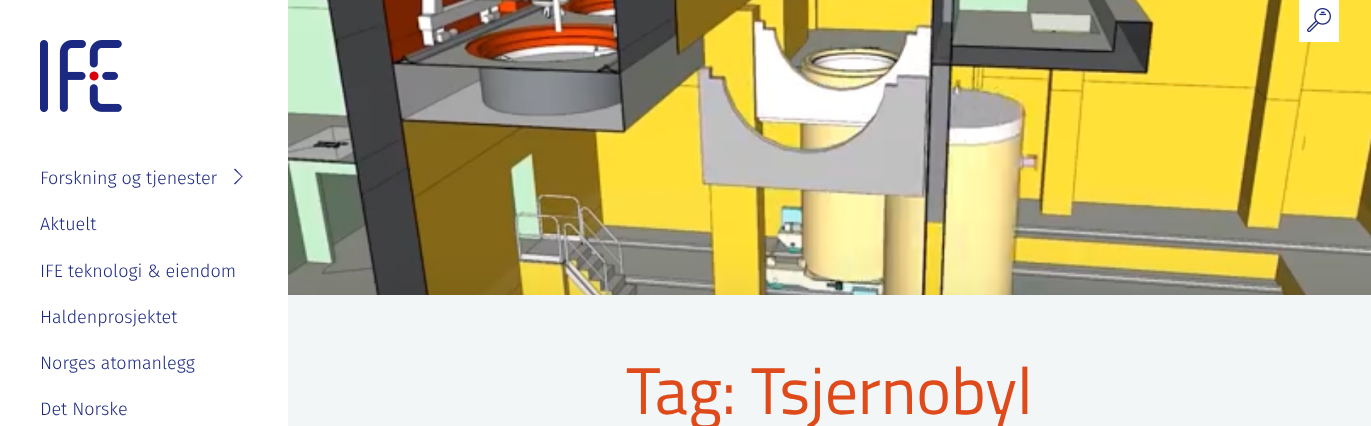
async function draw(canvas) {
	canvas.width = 1371;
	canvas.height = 426;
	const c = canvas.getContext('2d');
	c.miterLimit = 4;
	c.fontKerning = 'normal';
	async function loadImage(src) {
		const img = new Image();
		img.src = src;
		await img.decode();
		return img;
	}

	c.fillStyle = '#f2f6f7';
	c.fillRect(0, 0, 1371, 426);
	c.drawImage(await loadImage('img3.png'), 288, 0, 1083, 295);
	c.fillStyle = '#fff';
	c.fillRect(1299, 0, 40, 42);
	c.drawImage(await loadImage('img1.png'), 1307, 8, 24, 24);
	c.fillRect(0, 0, 288, 426);
	c.drawImage(await loadImage('img2.png'), 40, 40, 82, 72);
	c.font = '300 18px Fira Sans';
	c.fillStyle = '#1c2982';
	c.fillText('Forskning og tjenester', 40, 184);
	c.beginPath();
	c.moveTo(234, 169.5);
	c.lineTo(235, 168.5);
	c.lineTo(242.5, 176.5);
	c.lineTo(242, 177);
	c.closePath();
	c.fill();
	c.beginPath();
	c.moveTo(234, 183.5);
	c.lineTo(242, 176);
	c.lineTo(242.5, 176.5);
	c.lineTo(235, 184.5);
	c.closePath();
	c.fill();
	for (const [text, x, y] of [
		['Aktuelt', 40, 230],
		['IFE teknologi & eiendom', 40, 277],
		['Haldenprosjektet', 40, 323],
		['Norges atomanlegg', 40, 369],
		['Det Norske', 40, 415],
	]) {
		c.fillText(text, x, y);
	}
	c.font = '66px Titillium Web';
	c.fillStyle = '#df4a1b';
	c.fillText('Tag: Tsjernobyl', 626, 414);
}

draw(document.querySelector('canvas'));
